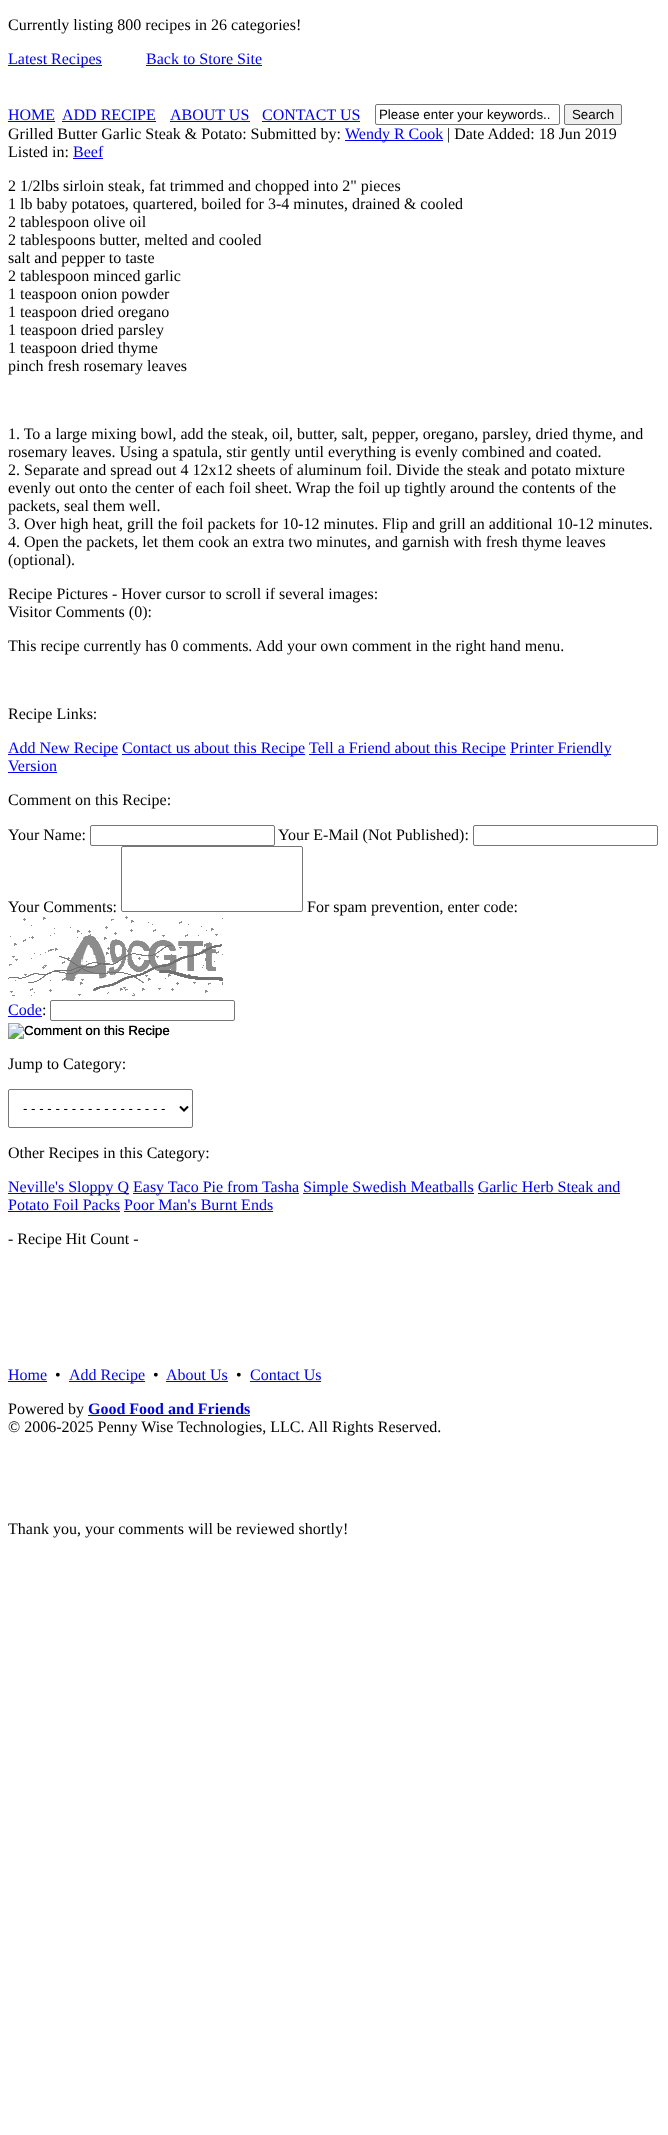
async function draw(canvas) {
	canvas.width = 668;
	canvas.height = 2135;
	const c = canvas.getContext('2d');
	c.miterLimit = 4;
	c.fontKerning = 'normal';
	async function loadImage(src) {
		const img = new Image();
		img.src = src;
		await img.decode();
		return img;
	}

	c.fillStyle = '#fff';
	c.fillRect(0, 0, 668, 2135);
	c.font = '16px Liberation Serif';
	c.fillStyle = '#000';
	c.fillText('Currently listing 800 recipes in 26 categories!', 8, 30);
	c.fillStyle = '#00e';
	c.fillRect(8, 65, 94, 1);
	c.fillText('Latest Recipes', 8, 64);
	c.fillText('Back to Store Site', 146, 64);
	c.fillRect(146, 65, 116, 1);
	c.fillText('HOME', 8, 120);
	c.fillRect(8, 121, 47, 1);
	c.fillText('ADD RECIPE', 62, 120);
	c.fillRect(62, 121, 94, 1);
	c.fillText('ABOUT US', 170, 120);
	c.fillRect(170, 121, 80, 1);
	c.fillText('CONTACT US', 262, 120);
	c.fillRect(262, 121, 98, 1);
	c.beginPath();
	c.roundRect(375.5, 104.5, 184, 20, 1.5);
	c.strokeStyle = '#767676';
	c.stroke();
	c.font = '13.3px Liberation Sans';
	c.fillStyle = '#000';
	c.fillText('Please enter your keywords..', 379, 119);
	c.fillStyle = '#efefef';
	c.beginPath();
	c.roundRect(564.5, 104.5, 57, 20, 1.5);
	c.fill();
	c.stroke();
	c.fillStyle = '#000';
	c.fillText('Search', 572, 119);
	c.font = '16px Liberation Serif';
	c.fillText('Grilled Butter Garlic Steak & Potato: Submitted by:', 8, 139);
	c.fillStyle = '#00e';
	c.fillRect(345, 140, 98, 1);
	c.fillText('Wendy R Cook', 345, 139);
	c.fillStyle = '#000';
	c.fillText('| Date Added: 18 Jun 2019', 447, 139);
	c.fillText('Listed in:', 8, 157);
	c.fillStyle = '#00e';
	c.fillText('Beef', 73, 157);
	c.fillRect(73, 158, 30, 1);
	c.fillStyle = '#000';
	for (const [text, x, y] of [
		['2 1/2lbs sirloin steak, fat trimmed and chopped into 2" pieces', 8, 191],
		['1 lb baby potatoes, quartered, boiled for 3-4 minutes, drained & cooled', 8, 209],
		['2 tablespoon olive oil', 8, 227],
		['2 tablespoons butter, melted and cooled', 8, 245],
		['salt and pepper to taste', 8, 263],
		['2 tablespoon minced garlic', 8, 281],
		['1 teaspoon onion powder', 8, 299],
		['1 teaspoon dried oregano', 8, 317],
		['1 teaspoon dried parsley', 8, 335],
		['1 teaspoon dried thyme', 8, 353],
		['pinch fresh rosemary leaves', 8, 371],
		['1. To a large mixing bowl, add the steak, oil, butter, salt, pepper, oregano, parsley, dried thyme, and', 8, 439],
		['rosemary leaves. Using a spatula, stir gently until everything is evenly combined and coated.', 8, 457],
		['2. Separate and spread out 4 12x12 sheets of aluminum foil. Divide the steak and potato mixture', 8, 475],
		['evenly out onto the center of each foil sheet. Wrap the foil up tightly around the contents of the', 8, 493],
		['packets, seal them well.', 8, 511],
		['3. Over high heat, grill the foil packets for 10-12 minutes. Flip and grill an additional 10-12 minutes.', 8, 529],
		['4. Open the packets, let them cook an extra two minutes, and garnish with fresh thyme leaves', 8, 547],
		['(optional).', 8, 565],
		['Recipe Pictures - Hover cursor to scroll if several images:', 8, 599],
		['Visitor Comments (0):', 8, 617],
		['This recipe currently has 0 comments. Add your own comment in the right hand menu.', 8, 651],
		['Recipe Links:', 8, 719],
	]) {
		c.fillText(text, x, y);
	}
	c.fillStyle = '#00e';
	c.fillRect(8, 754, 110, 1);
	c.fillText('Add New Recipe', 8, 753);
	c.fillRect(122, 754, 183, 1);
	c.fillText('Contact us about this Recipe', 122, 753);
	c.fillRect(309, 754, 197, 1);
	c.fillText('Tell a Friend about this Recipe', 309, 753);
	c.fillRect(510, 754, 101, 1);
	c.fillText('Printer Friendly', 510, 753);
	c.fillText('Version', 8, 771);
	c.fillRect(8, 772, 49, 1);
	c.fillStyle = '#000';
	c.fillText('Comment on this Recipe:', 8, 805);
	c.fillText('Your Name:', 8, 840);
	c.beginPath();
	c.roundRect(90.5, 825.5, 184, 20, 1.5);
	c.stroke();
	c.fillText('Your E-Mail (Not Published):', 278, 840);
	c.beginPath();
	c.roundRect(473.5, 825.5, 184, 20, 1.5);
	c.stroke();
	c.beginPath();
	c.roundRect(121.5, 846.5, 181, 65, 1.5);
	c.stroke();
	c.fillText('For spam prevention, enter code:', 307, 912);
	c.drawImage(await loadImage('img1.png'), 8, 916, 215, 80);
	c.fillStyle = '#00e';
	c.fillText('Code', 8, 1015);
	c.fillRect(8, 1016, 34, 1);
	c.fillStyle = '#000';
	c.fillText(':', 42, 1015);
	c.beginPath();
	c.roundRect(50.5, 1000.5, 184, 20, 1.5);
	c.stroke();
	c.fillText('Your Comments:', 8, 912);
	c.drawImage(await loadImage('img2.png'), 8, 1023, 162, 16);
	c.font = '13.3px Liberation Sans';
	c.fillText('Comment on this Recipe', 24, 1035);
	c.font = '16px Liberation Serif';
	c.fillText('Jump to Category:', 8, 1069);
	c.beginPath();
	c.roundRect(8.5, 1089.5, 184, 38, 1.5);
	c.stroke();
	c.beginPath();
	c.moveTo(180, 1106.5);
	c.lineTo(184, 1110.5);
	c.lineTo(188, 1106.5);
	c.strokeStyle = '#000';
	c.lineWidth = 2;
	c.stroke();
	c.font = '13.3px Liberation Sans';
	c.fillText('- - - - - - - - - - - - - - - - - -', 23, 1113);
	c.font = '16px Liberation Serif';
	c.fillText('Other Recipes in this Category:', 8, 1158);
	c.fillStyle = '#00e';
	c.fillRect(8, 1193, 121, 1);
	c.fillText('Neville\'s Sloppy Q', 8, 1192);
	c.fillRect(133, 1193, 166, 1);
	c.fillText('Easy Taco Pie from Tasha', 133, 1192);
	c.fillRect(303, 1193, 171, 1);
	c.fillText('Simple Swedish Meatballs Garlic Herb Steak and', 303, 1192);
	c.fillText('Potato Foil Packs Poor Man\'s Burnt Ends', 8, 1210);
	for (const [x, y, w, h, color] of [
		[478, 1193, 142, 1, '#00e'],
		[8, 1211, 112, 1, '#00e'],
		[124, 1211, 149, 1, '#00e'],
	]) {
		c.fillStyle = color;
		c.fillRect(x, y, w, h);
	}
	c.fillStyle = '#000';
	c.fillText('- Recipe Hit Count -', 8, 1244);
	c.fillStyle = '#00e';
	c.fillText('Home', 8, 1380);
	c.fillRect(8, 1381, 39, 1);
	c.fillStyle = '#000';
	c.fillText('•', 55, 1380);
	c.fillStyle = '#00e';
	c.fillRect(69, 1381, 76, 1);
	c.fillText('Add Recipe', 69, 1380);
	c.fillStyle = '#000';
	c.fillText('•', 153, 1380);
	c.fillStyle = '#00e';
	c.fillText('About Us', 166, 1380);
	c.fillRect(166, 1381, 62, 1);
	c.fillStyle = '#000';
	c.fillText('•', 236, 1380);
	c.fillStyle = '#00e';
	c.fillText('Contact Us', 250, 1380);
	c.fillRect(250, 1381, 71, 1);
	c.fillStyle = '#000';
	c.fillText('Powered by', 8, 1414);
	c.font = 'bold 16px Liberation Serif';
	c.fillStyle = '#00e';
	c.fillText('Good Food and Friends', 88, 1414);
	c.fillRect(88, 1415, 162, 1);
	c.font = '16px Liberation Serif';
	c.fillStyle = '#000';
	c.fillText('© 2006-2025 Penny Wise Technologies, LLC. All Rights Reserved.', 8, 1432);
	c.fillText('Thank you, your comments will be reviewed shortly!', 8, 1534);
}

draw(document.querySelector('canvas'));
